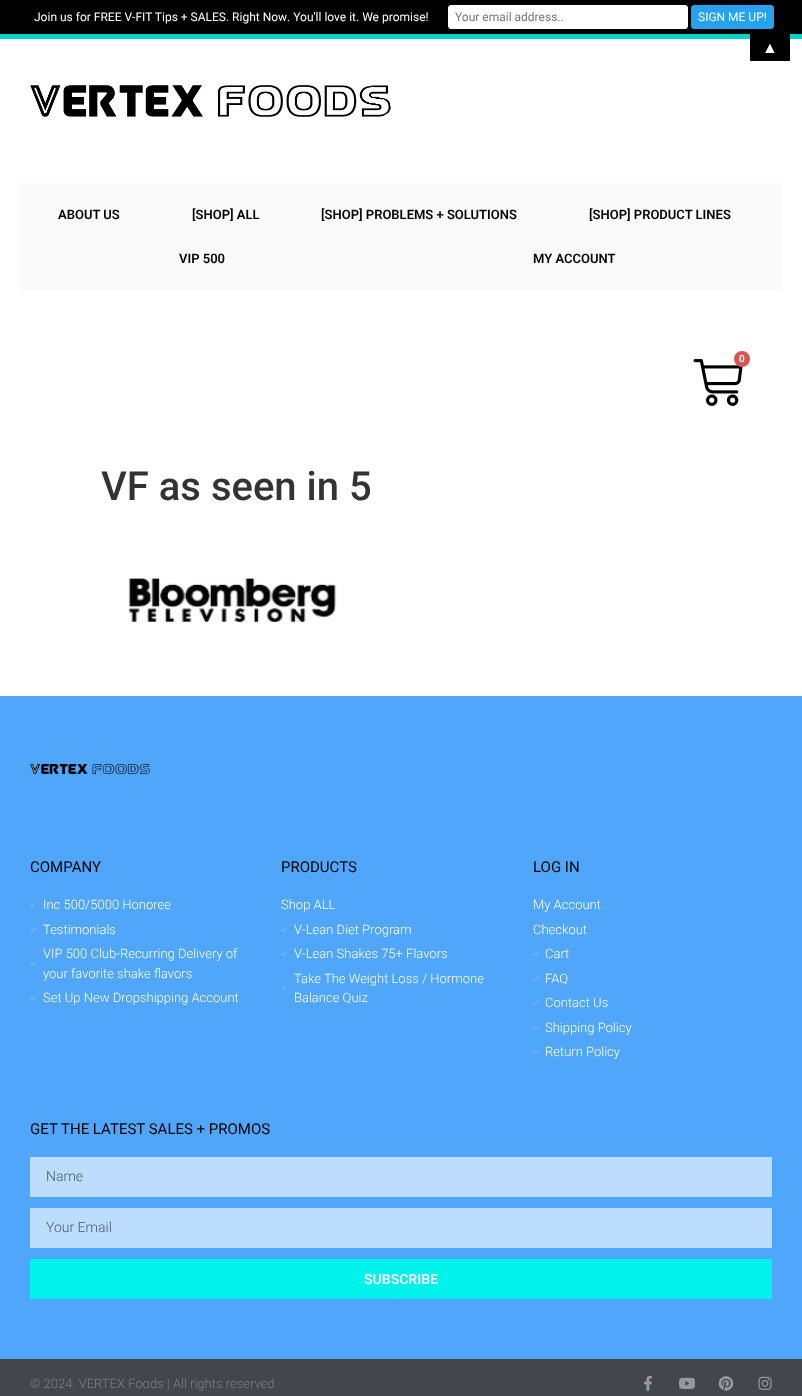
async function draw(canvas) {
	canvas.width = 802;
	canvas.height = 1396;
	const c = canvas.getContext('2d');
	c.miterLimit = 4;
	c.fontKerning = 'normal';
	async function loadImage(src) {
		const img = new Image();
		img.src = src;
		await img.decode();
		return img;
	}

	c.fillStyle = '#fff';
	c.fillRect(0, 0, 802, 1396);
	c.fillStyle = '#000';
	c.fillRect(0, 0, 802, 34);
	c.font = '12px Roboto';
	c.fillStyle = '#fff';
	c.fillText('Join us for FREE V-FIT Tips + SALES. Right Now. You\'ll love it. We promise!', 34, 21);
	c.beginPath();
	c.roundRect(448.5, 5.5, 239, 23, 2.5);
	c.fill();
	c.strokeStyle = '#fff';
	c.stroke();
	c.fillStyle = '#757575';
	c.fillText('Your email address..', 455, 21);
	c.fillStyle = '#26a2ef';
	c.beginPath();
	c.roundRect(691.5, 5.5, 82, 23, 2.5);
	c.fill();
	c.strokeStyle = '#26a2ef';
	c.stroke();
	c.fillStyle = '#fff';
	c.fillText('SIGN ME UP!', 698, 21);
	c.fillStyle = '#02d3c9';
	c.fillRect(0, 34, 802, 5);
	c.fillStyle = '#000';
	c.fillRect(750, 34, 40, 27);
	c.font = '16px Liberation Sans';
	c.fillStyle = '#fff';
	c.fillText('▲', 762, 53);
	c.drawImage(await loadImage('img1.png'), 30, 85, 361, 32);
	c.fillStyle = '#fafafa';
	c.fillRect(20, 183, 762, 108);
	c.font = '600 13px Roboto';
	c.fillStyle = '#000';
	for (const [text, x, y] of [
		['ABOUT US', 58, 219],
		['[SHOP] ALL', 192, 219],
		['[SHOP] PROBLEMS + SOLUTIONS', 321, 219],
		['[SHOP] PRODUCT LINES', 589, 219],
		['VIP 500', 179, 263],
		['MY ACCOUNT', 533, 263],
	]) {
		c.fillText(text, x, y);
	}
	c.drawImage(await loadImage('img2.png'), 693, 359, 50, 47);
	c.fillStyle = '#d9534f';
	c.beginPath();
	c.arc(742, 359, 8, 0, 2 * Math.PI);
	c.fill();
	c.font = '600 10px Roboto';
	c.fillStyle = '#fff';
	c.fillText('0', 739, 362);
	c.font = '500 40px Roboto';
	c.fillStyle = '#333';
	c.fillText('VF as seen in 5', 101, 500);
	c.drawImage(await loadImage('img3.png'), 128, 575, 209, 48);
	c.fillStyle = '#4fa6fa';
	c.fillRect(0, 696, 802, 663);
	c.drawImage(await loadImage('img4.png'), 30, 764, 120, 10);
	c.font = '15px Roboto';
	c.fillStyle = '#000';
	c.fillText('COMPANY', 30, 872);
	c.drawImage(await loadImage('img5.png'), 30, 902, 6, 5);
	c.font = '300 13px Roboto';
	c.fillStyle = '#fff';
	c.fillText('Inc 500/5000 Honoree', 43, 909);
	c.drawImage(await loadImage('img5.png'), 30, 927, 6, 5);
	c.fillText('Testimonials', 43, 934);
	c.drawImage(await loadImage('img5.png'), 30, 961, 6, 5);
	c.fillText('VIP 500 Club-Recurring Delivery of', 43, 958);
	c.fillText('your favorite shake flavors', 43, 978);
	c.drawImage(await loadImage('img5.png'), 30, 995, 6, 5);
	c.fillText('Set Up New Dropshipping Account', 43, 1002);
	c.font = '15px Roboto';
	c.fillStyle = '#000';
	c.fillText('PRODUCTS', 281, 872);
	c.font = '300 13px Roboto';
	c.fillStyle = '#fff';
	c.fillText('Shop ALL', 281, 909);
	c.drawImage(await loadImage('img5.png'), 281, 927, 6, 5);
	c.fillText('V-Lean Diet Program', 294, 934);
	c.drawImage(await loadImage('img5.png'), 281, 951, 6, 5);
	c.fillText('V-Lean Shakes 75+ Flavors', 294, 958);
	c.drawImage(await loadImage('img5.png'), 281, 985, 6, 5);
	c.fillText('Take The Weight Loss / Hormone', 294, 983);
	c.fillText('Balance Quiz', 294, 1002);
	c.font = '15px Roboto';
	c.fillStyle = '#000';
	c.fillText('LOG IN', 533, 872);
	c.font = '300 13px Roboto';
	c.fillStyle = '#fff';
	c.fillText('My Account', 533, 909);
	c.fillText('Checkout', 533, 934);
	c.drawImage(await loadImage('img5.png'), 533, 951, 6, 5);
	c.fillText('Cart', 545, 958);
	c.drawImage(await loadImage('img5.png'), 533, 976, 6, 5);
	c.fillText('FAQ', 545, 983);
	c.drawImage(await loadImage('img5.png'), 533, 1000, 6, 5);
	c.fillText('Contact Us', 545, 1007);
	c.drawImage(await loadImage('img5.png'), 533, 1025, 6, 5);
	c.fillText('Shipping Policy', 545, 1032);
	c.drawImage(await loadImage('img5.png'), 533, 1049, 6, 5);
	c.fillText('Return Policy', 545, 1056);
	c.font = '15px Roboto';
	c.fillStyle = '#000';
	c.fillText('GET THE LATEST SALES + PROMOS', 30, 1134);
	c.fillStyle = '#bcddfd';
	c.fillRect(30, 1157, 742, 40);
	c.font = '300 14px Roboto';
	c.fillStyle = '#4b5865';
	c.fillText('Name', 46, 1181);
	c.fillStyle = '#bcddfd';
	c.fillRect(30, 1208, 742, 40);
	c.fillStyle = '#4b5865';
	c.fillText('Your Email', 46, 1232);
	c.fillStyle = '#00f2ea';
	c.fillRect(30, 1259, 742, 40);
	c.font = '600 14px Roboto';
	c.fillStyle = '#fff';
	c.fillText('SUBSCRIBE', 364, 1284);
	c.fillStyle = '#43464c';
	c.fillRect(0, 1359, 802, 37);
	c.font = '300 13px Roboto';
	c.fillStyle = '#7f8185';
	c.fillText('© 2024. VERTEX Foods | All rights reserved', 30, 1388);
	c.drawImage(await loadImage('img6.png'), 644, 1375, 8, 16);
	c.drawImage(await loadImage('img7.png'), 679, 1377, 16, 12);
	c.drawImage(await loadImage('img8.png'), 718, 1376, 16, 15);
	c.drawImage(await loadImage('img9.png'), 758, 1376, 14, 14);
}

draw(document.querySelector('canvas'));
